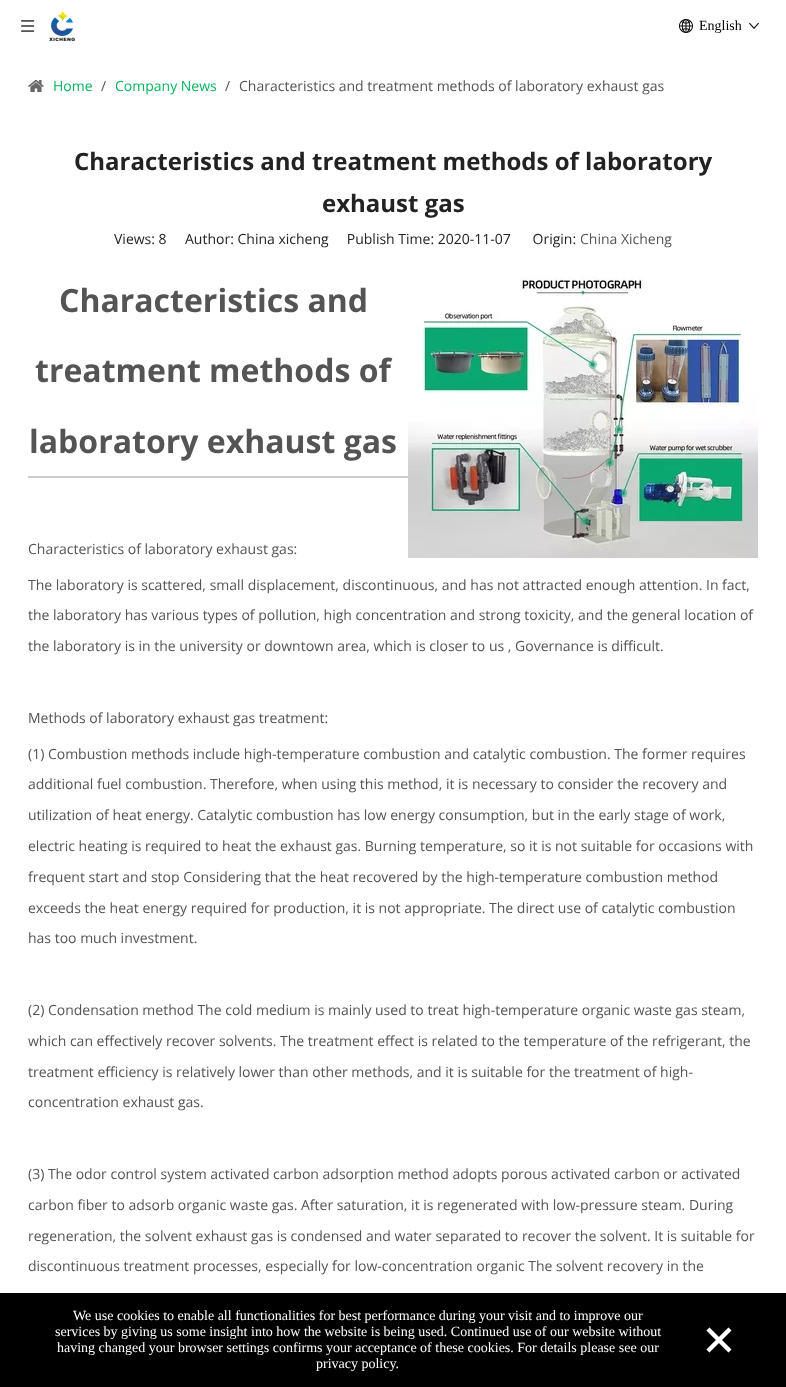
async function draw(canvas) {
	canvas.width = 786;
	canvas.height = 1387;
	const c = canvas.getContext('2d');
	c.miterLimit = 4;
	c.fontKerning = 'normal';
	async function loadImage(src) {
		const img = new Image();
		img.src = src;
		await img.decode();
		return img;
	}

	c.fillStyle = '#fff';
	c.fillRect(0, 0, 786, 1387);
	c.drawImage(await loadImage('img1.png'), 21, 20, 14, 12);
	c.drawImage(await loadImage('img2.png'), 49, 11, 26, 30);
	c.drawImage(await loadImage('img3.png'), 679, 19, 14, 14);
	c.font = '14px Liberation Serif';
	c.fillStyle = '#000';
	c.fillText('English', 699, 30);
	c.drawImage(await loadImage('img4.png'), 749, 22, 10, 7);
	c.drawImage(await loadImage('img5.png'), 28, 80, 16, 12);
	c.font = '14px Open Sans';
	c.fillStyle = '#08b45e';
	c.fillText('Home', 53, 91);
	c.fillStyle = '#545454';
	c.fillText('/', 101, 91);
	c.fillStyle = '#08b45e';
	c.fillText('Company News', 115, 91);
	c.fillStyle = '#545454';
	c.fillText('/', 225, 91);
	c.fillText('Characteristics and treatment methods of laboratory exhaust gas', 239, 91);
	c.font = 'bold 24px Open Sans';
	c.fillStyle = '#222';
	c.fillText('Characteristics and treatment methods of laboratory', 74, 170);
	c.fillText('exhaust gas', 322, 212);
	c.font = '14px Open Sans';
	c.fillText('Views: 8', 114, 244);
	c.fillText('Author: China xicheng     Publish Time: 2020-11-07      Origin:', 185, 244);
	c.fillStyle = '#545454';
	c.fillText('China Xicheng', 580, 244);
	c.fillStyle = '#ccc';
	c.fillRect(28, 476, 380, 2);
	c.font = 'bold 32px Open Sans';
	c.fillStyle = '#545454';
	for (const [text, x, y] of [
		['Characteristics and', 59, 312],
		['treatment methods of', 35, 382],
		['laboratory exhaust gas', 29, 453],
	]) {
		c.fillText(text, x, y);
	}
	c.drawImage(await loadImage('img6.png'), 408, 277, 350, 281);
	c.font = '14px Open Sans';
	for (const [text, x, y] of [
		['Characteristics of laboratory exhaust gas:', 28, 554],
		['The laboratory is scattered, small displacement, discontinuous, and has not attracted enough attention. In fact,', 28, 590],
		['the laboratory has various types of pollution, high concentration and strong toxicity, and the general location of', 28, 620],
		['the laboratory is in the university or downtown area, which is closer to us , Governance is difficult.', 28, 651],
		['Methods of laboratory exhaust gas treatment:', 28, 723],
		['(1) Combustion methods include high-temperature combustion and catalytic combustion. The former requires', 28, 759],
		['additional fuel combustion. Therefore, when using this method, it is necessary to consider the recovery and', 28, 789],
		['utilization of heat energy. Catalytic combustion has low energy consumption, but in the early stage of work,', 28, 820],
		['electric heating is required to heat the exhaust gas. Burning temperature, so it is not suitable for occasions with', 28, 851],
		['frequent start and stop Considering that the heat recovered by the high-temperature combustion method', 28, 882],
		['exceeds the heat energy required for production, it is not appropriate. The direct use of catalytic combustion', 28, 913],
		['has too much investment.', 28, 943],
		['(2) Condensation method The cold medium is mainly used to treat high-temperature organic waste gas steam,', 28, 1015],
		['which can effectively recover solvents. The treatment effect is related to the temperature of the refrigerant, the', 28, 1046],
		['treatment efficiency is relatively lower than other methods, and it is suitable for the treatment of high-', 28, 1077],
		['concentration exhaust gas.', 28, 1107],
		['(3) The odor control system activated carbon adsorption method adopts porous activated carbon or activated', 28, 1179],
		['carbon fiber to adsorb organic waste gas. After saturation, it is regenerated with low-pressure steam. During', 28, 1210],
		['regeneration, the solvent exhaust gas is condensed and water separated to recover the solvent. It is suitable for', 28, 1241],
		['discontinuous treatment processes, especially for low-concentration organic The solvent recovery in the', 28, 1271],
	]) {
		c.fillText(text, x, y);
	}
	c.fillStyle = '#000';
	c.fillRect(0, 1293, 786, 94);
	c.font = '14px Liberation Serif';
	c.fillStyle = '#fff';
	for (const [text, x, y] of [
		['We use cookies to enable all functionalities for best performance during your visit and to improve our', 73, 1320],
		['services by giving us some insight into how the website is being used. Continued use of our website without', 55, 1336],
		['having changed your browser settings confirms your acceptance of these cookies. For details please see our', 57, 1352],
		['privacy policy.', 316, 1368],
	]) {
		c.fillText(text, x, y);
	}
	c.font = 'bold 60px Liberation Serif';
	c.fillText('×', 702, 1360);
}

draw(document.querySelector('canvas'));
